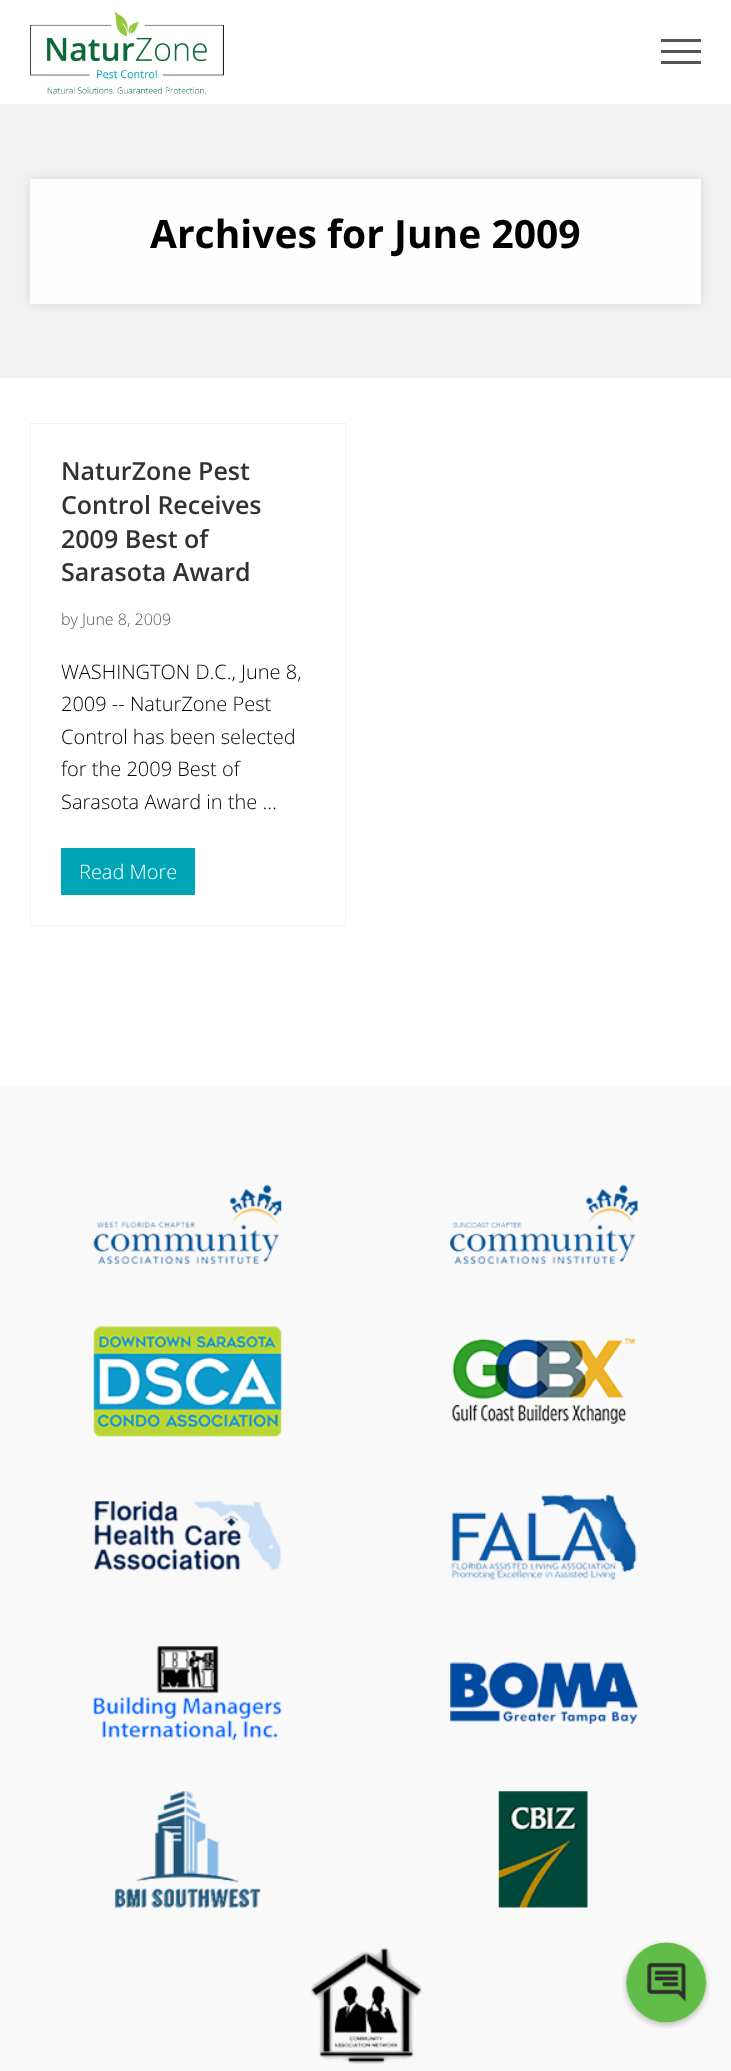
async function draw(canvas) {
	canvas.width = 731;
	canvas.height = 2071;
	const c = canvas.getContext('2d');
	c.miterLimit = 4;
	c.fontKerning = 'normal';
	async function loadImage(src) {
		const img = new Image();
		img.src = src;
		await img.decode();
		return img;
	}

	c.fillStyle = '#fff';
	c.fillRect(0, 0, 731, 2071);
	c.fillStyle = '#f2f2f2';
	c.fillRect(0, 104, 731, 1);
	c.drawImage(await loadImage('img1.png'), 30, 10, 194, 84);
	for (const [x, y, w, h, color] of [
		[661, 50, 40, 3, '#555'],
		[661, 39, 40, 3, '#555'],
		[661, 61, 40, 3, '#555'],
		[0, 105, 731, 273, '#f1f1f1'],
	]) {
		c.fillStyle = color;
		c.fillRect(x, y, w, h);
	}
	c.save();
	c.beginPath();
	c.moveTo(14, 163);
	c.lineTo(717, 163);
	c.lineTo(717, 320);
	c.lineTo(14, 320);
	c.closePath();
	c.moveTo(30, 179);
	c.lineTo(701, 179);
	c.lineTo(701, 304);
	c.lineTo(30, 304);
	c.closePath();
	c.clip('evenodd');
	c.fillStyle = '#0000001a';
	c.filter = 'blur(5px)';
	c.beginPath();
	c.rect(30, 179, 671, 125);
	c.fill();
	c.filter = 'none';
	c.restore();
	c.fillStyle = '#ffffffe6';
	c.fillRect(30, 179, 671, 125);
	c.font = 'bold 39px Open Sans';
	c.fillStyle = '#000';
	c.fillText('Archives for June 2009', 150, 248);
	c.strokeStyle = '#f0f0f0';
	c.strokeRect(30.5, 423.5, 315, 502);
	c.font = '600 25px Open Sans';
	c.fillStyle = '#323232';
	for (const [text, x, y] of [
		['NaturZone Pest', 61, 480],
		['Control Receives', 61, 514],
		['2009 Best of', 61, 548],
		['Sarasota Award', 61, 581],
	]) {
		c.fillText(text, x, y);
	}
	c.font = '300 16px Open Sans';
	c.fillStyle = '#555';
	c.fillText('by June 8, 2009', 61, 625);
	c.font = '300 20px Open Sans';
	c.fillStyle = '#000';
	for (const [text, x, y] of [
		['WASHINGTON D.C., June 8,', 61, 679],
		['2009 -- NaturZone Pest', 61, 711],
		['Control has been selected', 61, 744],
		['for the 2009 Best of', 61, 776],
		['Sarasota Award in the …', 61, 809],
	]) {
		c.fillText(text, x, y);
	}
	c.fillStyle = '#00a5b5';
	c.fillRect(61, 848, 134, 47);
	c.fillStyle = '#fff';
	c.fillText('Read More', 79, 879);
	c.fillStyle = '#f9f9f9';
	c.fillRect(0, 1086, 731, 985);
	c.drawImage(await loadImage('img2.png'), 93, 1184, 189, 80);
	c.drawImage(await loadImage('img3.png'), 450, 1184, 188, 80);
	c.drawImage(await loadImage('img4.png'), 93, 1326, 189, 111);
	c.drawImage(await loadImage('img5.png'), 452, 1337, 184, 87);
	c.drawImage(await loadImage('img6.png'), 93, 1501, 189, 71);
	c.drawImage(await loadImage('img7.png'), 451, 1494, 186, 87);
	c.drawImage(await loadImage('img8.png'), 93, 1646, 189, 95);
	c.drawImage(await loadImage('img9.png'), 450, 1662, 188, 62);
	c.drawImage(await loadImage('img10.png'), 114, 1791, 147, 117);
	c.drawImage(await loadImage('img11.png'), 498, 1791, 90, 117);
	c.drawImage(await loadImage('img12.png'), 310, 1947, 112, 117);
	c.drawImage(await loadImage('img13.png'), 622, 1941, 88, 88);
}

draw(document.querySelector('canvas'));
